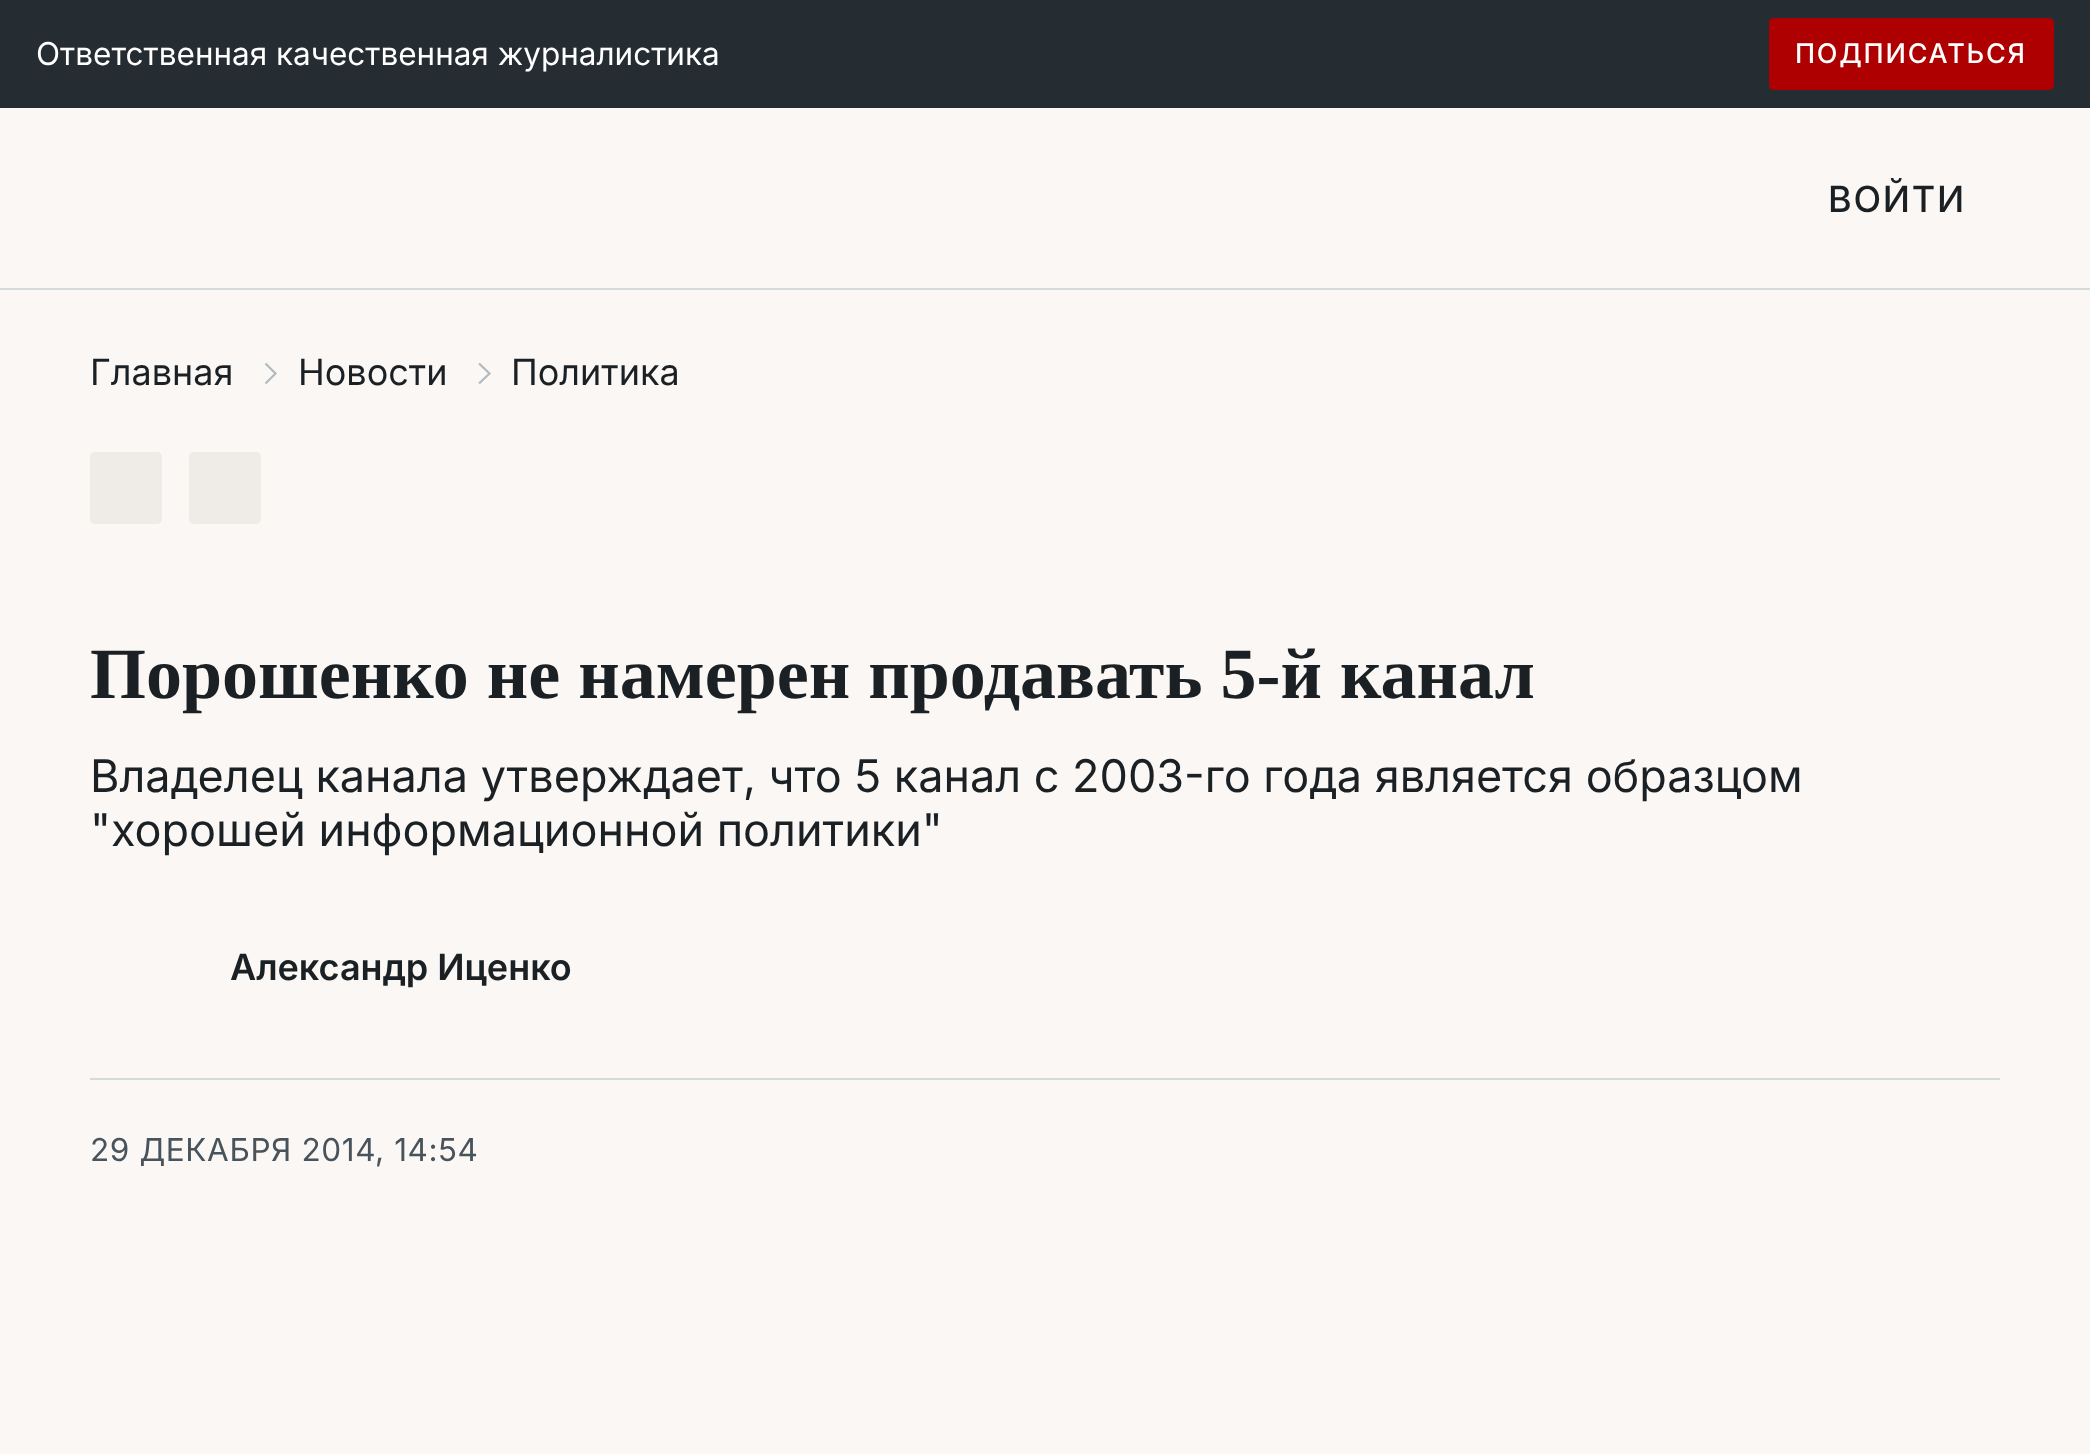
async function draw(canvas) {
	canvas.width = 2090;
	canvas.height = 1454;
	const c = canvas.getContext('2d');
	c.miterLimit = 4;
	c.fontKerning = 'normal';

	c.fillStyle = '#faf7f4';
	c.fillRect(0, 0, 2090, 1454);
	c.fillStyle = '#252c32';
	c.fillRect(0, 0, 2090, 108);
	c.font = '31.5px Inter';
	c.fillStyle = '#fff';
	c.fillText('Ответственная качественная журналистика', 36, 65);
	c.fillStyle = '#ae0000';
	c.beginPath();
	c.roundRect(1769, 18, 285, 72, 5);
	c.fill();
	c.letterSpacing = '1.75px';
	c.font = '500 27px Inter';
	c.fillStyle = '#fff';
	c.fillText('ПОДПИСАТЬСЯ', 1795, 63);
	c.fillStyle = '#d5dadd';
	c.fillRect(0, 288, 2090, 2);
	c.font = '500 36px Inter';
	c.fillStyle = '#1a2024';
	c.fillText('ВОЙТИ', 1828, 212);
	c.letterSpacing = '0px';
	c.font = '36px Inter';
	c.fillText('Главная', 90, 385);
	c.beginPath();
	c.moveTo(265.5, 363.5);
	c.lineTo(275.5, 373.5);
	c.lineTo(265.5, 383.5);
	c.strokeStyle = '#b0babf';
	c.lineWidth = 2.2;
	c.stroke();
	c.fillText('Новости', 298, 385);
	c.beginPath();
	c.moveTo(479, 363.5);
	c.lineTo(489.5, 373.5);
	c.lineTo(479, 383.5);
	c.stroke();
	c.fillText('Политика', 511, 385);
	c.fillStyle = '#efebe6';
	c.beginPath();
	c.roundRect(90, 452, 72, 72, 5);
	c.fill();
	c.beginPath();
	c.roundRect(189, 452, 72, 72, 5);
	c.fill();
	c.font = 'bold 72px Tinos';
	c.fillStyle = '#1a2024';
	c.fillText('Порошенко не намерен продавать 5-й канал', 90, 698);
	c.font = '45px Inter';
	c.fillText('Владелец канала утверждает, что 5 канал с 2003-го года является образцом', 90, 792);
	c.fillText('"хорошей информационной политики"', 90, 846);
	c.font = '600 36px Inter';
	c.fillText('Александр Иценко', 230, 980);
	c.fillStyle = '#d5dadd';
	c.fillRect(90, 1078, 1910, 2);
	c.letterSpacing = '0.6px';
	c.font = '31.5px Inter';
	c.fillStyle = '#48535b';
	c.fillText('29 ДЕКАБРЯ 2014, 14:54', 90, 1161);
}

draw(document.querySelector('canvas'));
